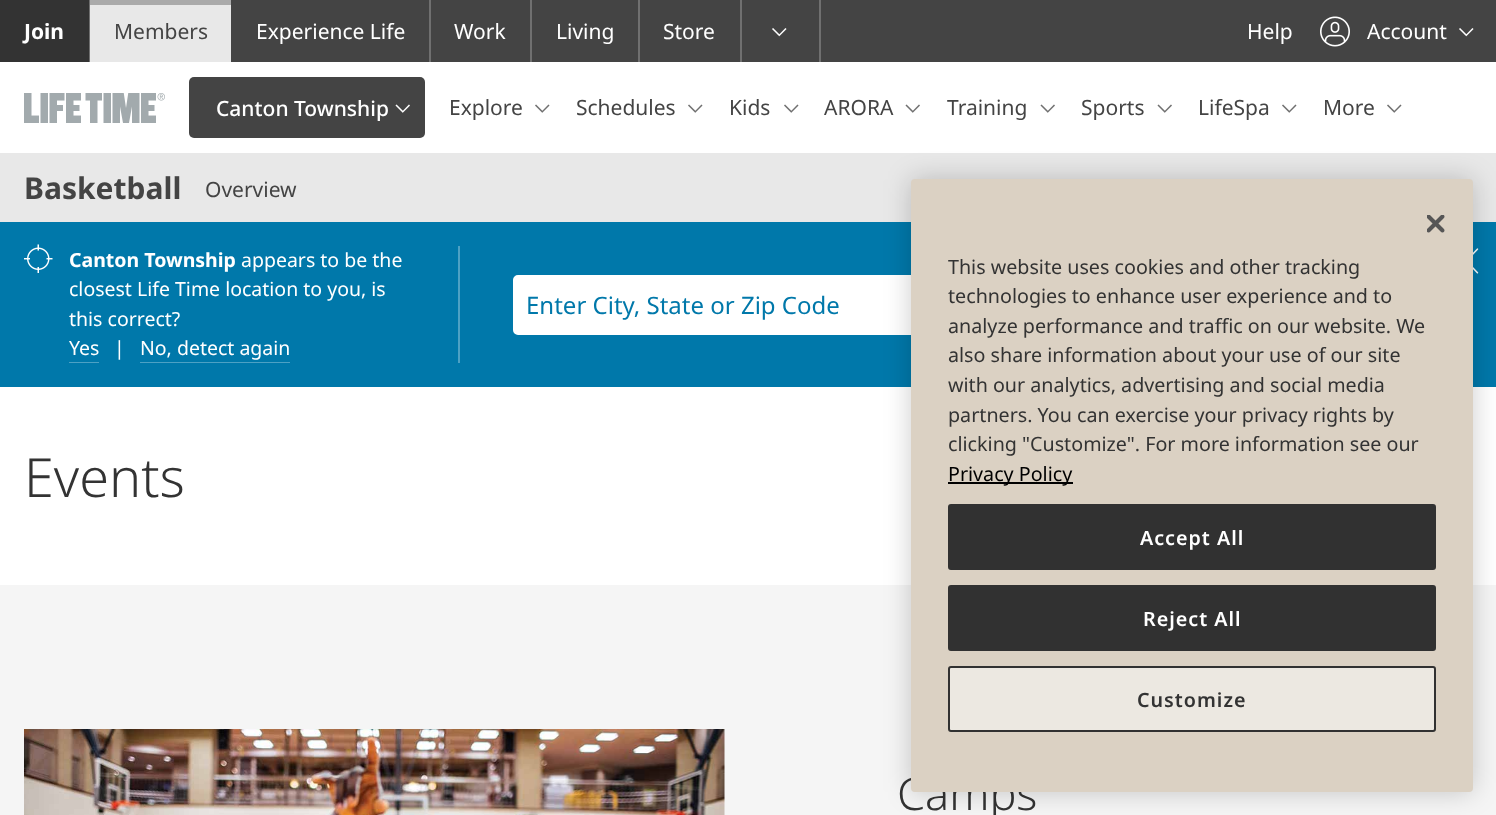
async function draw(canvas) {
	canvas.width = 1496;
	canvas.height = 815;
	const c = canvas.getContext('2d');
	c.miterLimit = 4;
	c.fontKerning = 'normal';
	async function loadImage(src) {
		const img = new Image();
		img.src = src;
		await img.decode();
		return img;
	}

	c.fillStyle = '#fff';
	c.fillRect(0, 0, 1496, 815);
	for (const [x, y, w, h, color] of [
		[231, 0, 1265, 62, '#444'],
		[0, 0, 89, 62, '#333'],
		[89, 0, 1, 62, '#707070'],
	]) {
		c.fillStyle = color;
		c.fillRect(x, y, w, h);
	}
	c.font = 'bold 21px Noto Sans';
	c.fillStyle = '#fff';
	c.fillText('Join', 24, 39);
	c.fillStyle = '#e8e8e8';
	c.fillRect(90, 5, 141, 57);
	c.fillStyle = '#aaa';
	c.fillRect(90, 0, 141, 5);
	c.font = '21px Noto Sans';
	c.fillStyle = '#444';
	c.fillText('Members', 114, 39);
	c.fillStyle = '#707070';
	c.fillRect(429, 0, 2, 62);
	c.fillStyle = '#fff';
	c.fillText('Experience Life', 256, 39);
	c.fillStyle = '#707070';
	c.fillRect(530, 0, 2, 62);
	c.fillStyle = '#fff';
	c.fillText('Work', 454, 39);
	c.fillStyle = '#707070';
	c.fillRect(638, 0, 2, 62);
	c.fillStyle = '#fff';
	c.fillText('Living', 556, 39);
	c.fillStyle = '#707070';
	c.fillRect(740, 0, 2, 62);
	c.fillStyle = '#fff';
	c.fillText('Store', 663, 39);
	c.fillStyle = '#707070';
	c.fillRect(819, 0, 2, 62);
	c.drawImage(await loadImage('img1.png'), 772, 28, 15, 9);
	c.fillStyle = '#fff';
	c.fillText('Help', 1247, 39);
	c.drawImage(await loadImage('img2.png'), 1320, 16, 30, 31);
	c.fillText('Account', 1367, 39);
	c.drawImage(await loadImage('img1.png'), 1459, 28, 15, 9);
	c.drawImage(await loadImage('img3.png'), 24, 93, 141, 30);
	c.fillStyle = '#444';
	c.beginPath();
	c.roundRect(189, 77, 236, 61, 5);
	c.fill();
	c.font = '500 21px Noto Sans';
	c.fillStyle = '#fff';
	c.fillText('Canton Township', 216, 116);
	c.drawImage(await loadImage('img4.png'), 395, 104, 15, 9);
	c.font = '21px Noto Sans';
	c.fillStyle = '#444';
	c.fillText('Explore', 449, 115);
	c.drawImage(await loadImage('img5.png'), 535, 104, 15, 9);
	c.fillText('Schedules', 576, 115);
	c.drawImage(await loadImage('img5.png'), 688, 104, 15, 9);
	c.fillText('Kids', 729, 115);
	c.drawImage(await loadImage('img5.png'), 784, 104, 15, 9);
	c.fillText('ARORA', 824, 115);
	c.drawImage(await loadImage('img6.png'), 905, 104, 15, 9);
	c.fillText('Training', 947, 115);
	c.drawImage(await loadImage('img6.png'), 1040, 104, 15, 9);
	c.fillText('Sports', 1081, 115);
	c.drawImage(await loadImage('img6.png'), 1157, 104, 15, 9);
	c.fillText('LifeSpa', 1198, 115);
	c.drawImage(await loadImage('img5.png'), 1282, 104, 15, 9);
	c.fillText('More', 1323, 115);
	c.drawImage(await loadImage('img5.png'), 1387, 104, 15, 9);
	c.fillStyle = '#e8e8e8';
	c.fillRect(0, 153, 1496, 69);
	c.font = 'bold 30px Noto Sans';
	c.fillStyle = '#444';
	c.fillText('Basketball', 24, 199);
	c.font = '21px Noto Sans';
	c.fillText('Overview', 205, 197);
	c.fillStyle = '#0078aa';
	c.fillRect(0, 222, 1496, 165);
	c.fillStyle = '#4da1c4';
	c.fillRect(458, 246, 2, 117);
	c.drawImage(await loadImage('img7.png'), 24, 244, 29, 29);
	c.font = 'bold 19.5px Noto Sans';
	c.fillStyle = '#fff';
	c.fillText('Canton Township', 69, 267);
	c.font = '19.5px Noto Sans';
	for (const [text, x, y] of [
		['appears to be the', 241, 267],
		['closest Life Time location to you, is', 69, 296],
		['this correct?', 69, 326],
		['Yes', 69, 355],
	]) {
		c.fillText(text, x, y);
	}
	c.fillStyle = '#4da1c4';
	c.fillRect(69, 362, 30, 1);
	c.fillStyle = '#fff';
	c.fillText('|', 114, 355);
	c.fillText('No, detect again', 140, 355);
	c.fillStyle = '#4da1c4';
	c.fillRect(140, 362, 150, 1);
	c.fillStyle = '#fff';
	c.beginPath();
	c.roundRect(514, 276, 427, 58, [4, 0, 0, 4]);
	c.fill();
	c.strokeStyle = '#fff';
	c.lineWidth = 2;
	c.stroke();
	c.font = '24px Noto Sans';
	c.fillStyle = '#0078aa';
	c.fillText('Enter City, State or Zip Code', 526, 314);
	c.drawImage(await loadImage('img8.png'), 1473, 248, 6, 26);
	c.font = '300 54px Noto Sans';
	c.fillStyle = '#333';
	c.fillText('Events', 24, 497);
	c.fillStyle = '#f5f5f5';
	c.fillRect(0, 585, 1496, 230);
	c.drawImage(await loadImage('img9.png'), 24, 729, 701, 86);
	c.font = '300 45px Noto Sans';
	c.fillStyle = '#333';
	c.fillText('Camps', 897, 810);
	c.fillStyle = '#00000033';
	c.filter = 'blur(13.5px)';
	c.beginPath();
	c.roundRect(911, 179, 562, 613, 4);
	c.fill();
	c.filter = 'none';
	c.fillStyle = '#dbd1c3';
	c.beginPath();
	c.roundRect(911, 179, 562, 613, 4);
	c.fill();
	c.drawImage(await loadImage('img10.png'), 1427, 215, 18, 18);
	c.font = '19.7px Noto Sans';
	c.fillStyle = '#333';
	for (const [text, x, y] of [
		['This website uses cookies and other tracking', 948, 274],
		['technologies to enhance user experience and to', 948, 303],
		['analyze performance and traffic on our website. We', 948, 333],
		['also share information about your use of our site', 948, 362],
		['with our analytics, advertising and social media', 948, 392],
		['partners. You can exercise your privacy rights by', 948, 422],
		['clicking "Customize". For more information see our', 948, 451],
	]) {
		c.fillText(text, x, y);
	}
	c.fillStyle = '#000';
	c.fillRect(948, 482, 125, 2);
	c.fillText('Privacy Policy', 948, 481);
	c.fillStyle = '#313131';
	c.beginPath();
	c.roundRect(949, 505, 486, 64, 2);
	c.fill();
	c.strokeStyle = '#313131';
	c.stroke();
	c.letterSpacing = '1px';
	c.font = '600 19.7px Noto Sans';
	c.fillStyle = '#fff';
	c.fillText('Accept All', 1140, 545);
	c.fillStyle = '#313131';
	c.beginPath();
	c.roundRect(949, 586, 486, 64, 2);
	c.fill();
	c.stroke();
	c.fillStyle = '#fff';
	c.fillText('Reject All', 1143, 626);
	c.fillStyle = '#ece8e1';
	c.beginPath();
	c.roundRect(949, 667, 486, 64, 2);
	c.fill();
	c.stroke();
	c.fillStyle = '#333';
	c.fillText('Customize', 1137, 707);
}

draw(document.querySelector('canvas'));
